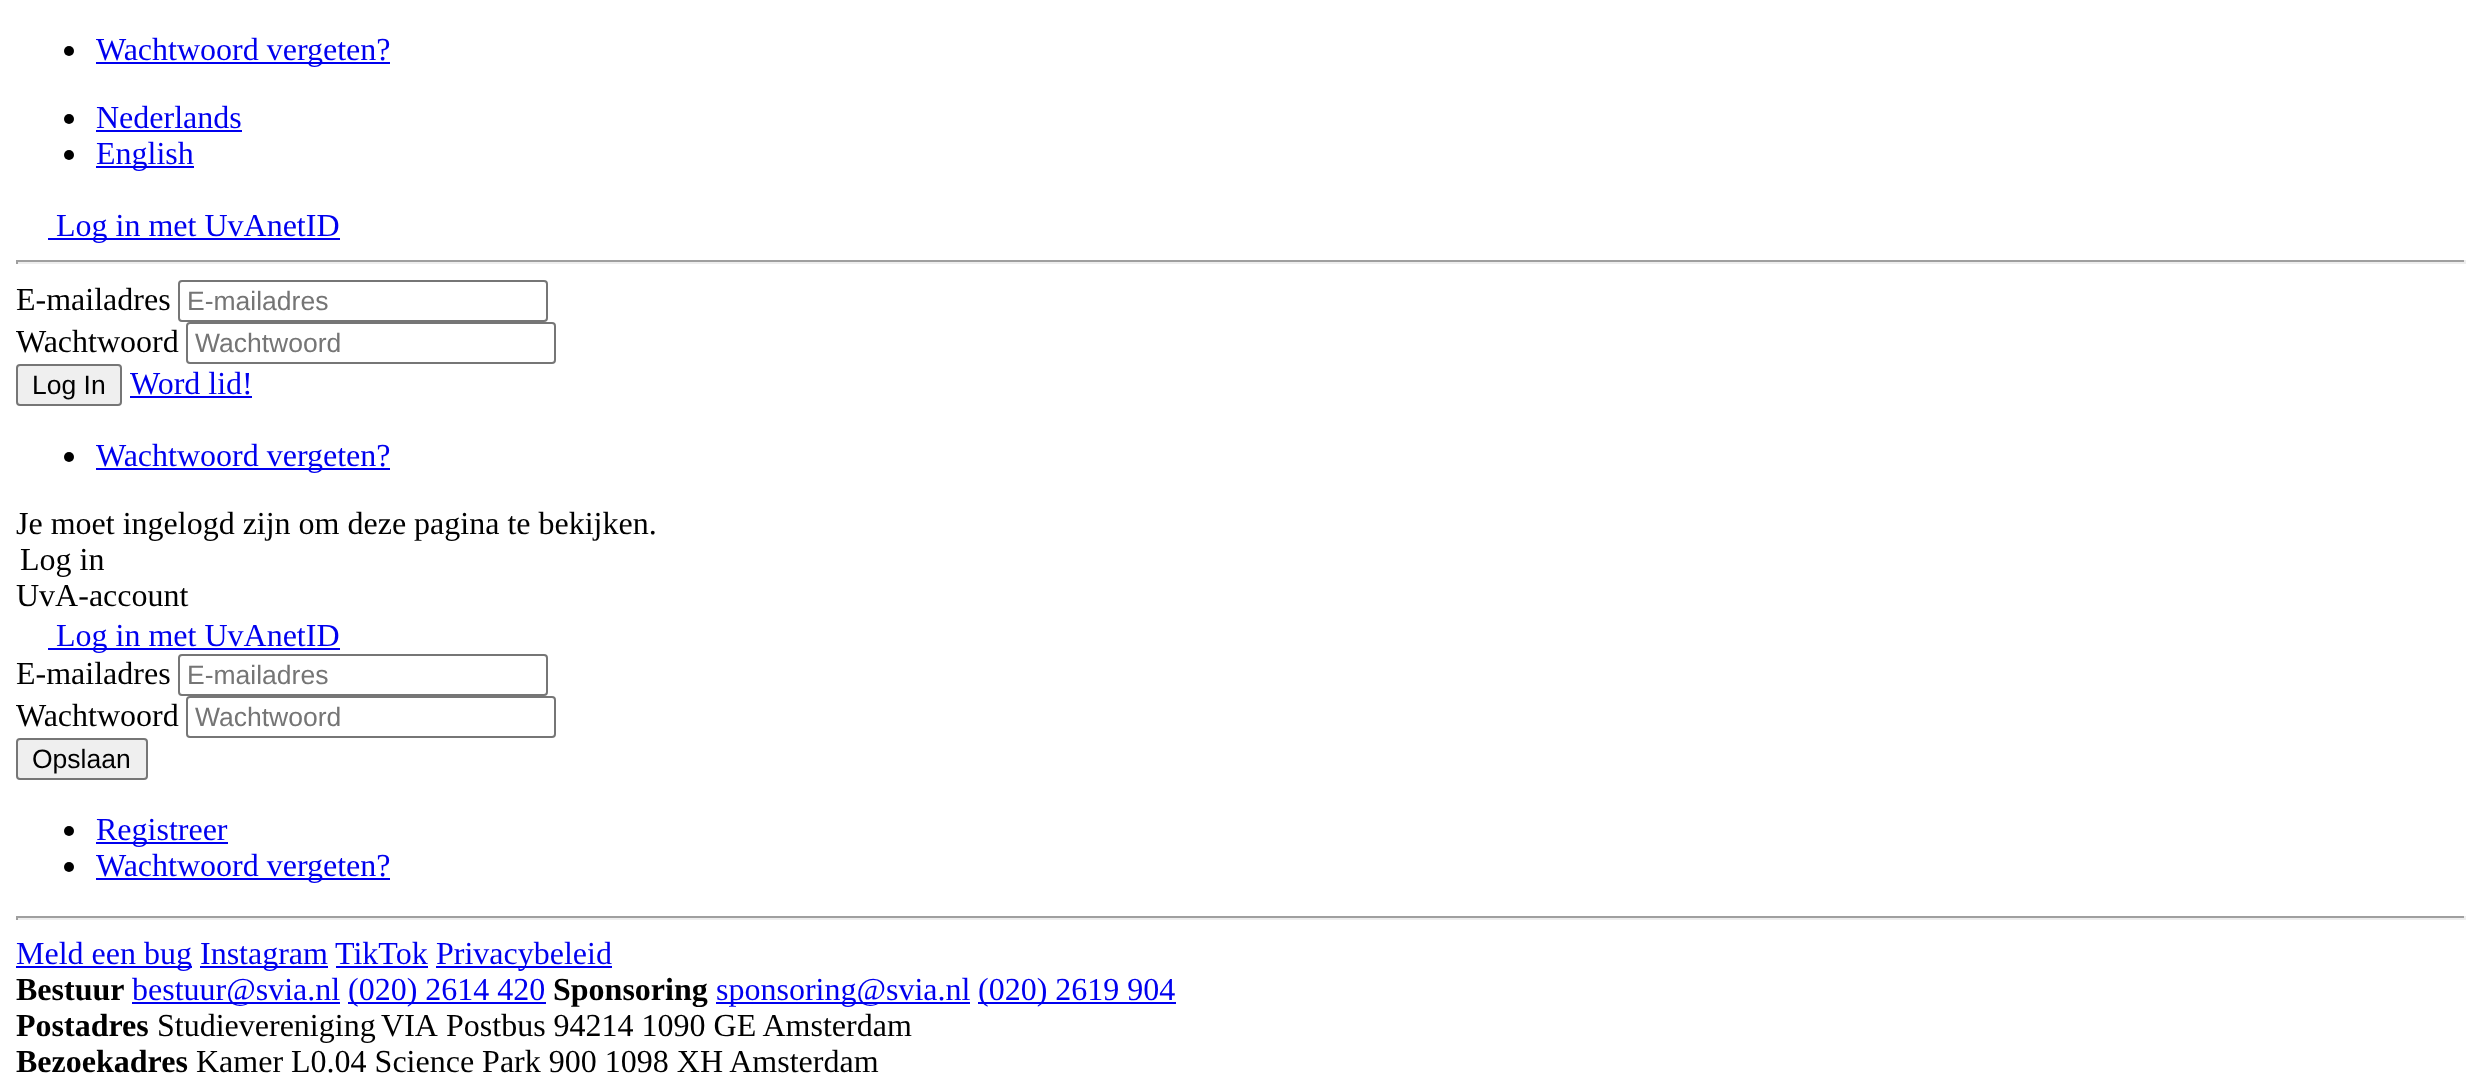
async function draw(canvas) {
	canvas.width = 2482;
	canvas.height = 1077;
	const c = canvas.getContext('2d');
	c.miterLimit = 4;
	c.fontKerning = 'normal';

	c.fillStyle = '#fff';
	c.fillRect(0, 0, 2482, 1077);
	c.fillStyle = '#000';
	c.beginPath();
	c.arc(69, 51, 5, 0, 2 * Math.PI);
	c.fill();
	c.fillStyle = '#00e';
	c.fillRect(96, 62, 294, 2);
	c.font = '32px Liberation Serif';
	c.fillText('Wachtwoord vergeten?', 96, 60);
	c.fillStyle = '#000';
	c.beginPath();
	c.arc(69, 119, 5, 0, 2 * Math.PI);
	c.fill();
	c.fillStyle = '#00e';
	c.fillText('Nederlands', 96, 128);
	c.fillRect(96, 130, 146, 2);
	c.fillStyle = '#000';
	c.beginPath();
	c.arc(69, 155, 5, 0, 2 * Math.PI);
	c.fill();
	c.fillStyle = '#00e';
	c.fillRect(96, 166, 98, 2);
	c.fillText('English', 96, 164);
	c.fillRect(48, 238, 292, 2);
	c.fillText('Log in met UvAnetID', 56, 236);
	for (const [x, y, w, h, color] of [
		[16, 260, 2450, 2, '#9f9f9f'],
		[2464, 260, 2, 4, '#eee'],
		[16, 262, 2450, 2, '#eee'],
		[16, 260, 2, 4, '#9f9f9f'],
	]) {
		c.fillStyle = color;
		c.fillRect(x, y, w, h);
	}
	c.fillStyle = '#000';
	c.fillText('E-mailadres', 16, 310);
	c.beginPath();
	c.roundRect(179, 281, 368, 40, 3);
	c.strokeStyle = '#767676';
	c.lineWidth = 2;
	c.stroke();
	c.font = '26.5px Liberation Sans';
	c.fillStyle = '#757575';
	c.fillText('E-mailadres', 187, 310);
	c.font = '32px Liberation Serif';
	c.fillStyle = '#000';
	c.fillText('Wachtwoord', 16, 352);
	c.beginPath();
	c.roundRect(187, 323, 368, 40, 3);
	c.stroke();
	c.font = '26.5px Liberation Sans';
	c.fillStyle = '#757575';
	c.fillText('Wachtwoord', 195, 352);
	c.fillStyle = '#efefef';
	c.beginPath();
	c.roundRect(17, 365, 104, 40, 3);
	c.fill();
	c.stroke();
	c.fillStyle = '#000';
	c.fillText('Log In', 32, 394);
	c.font = '32px Liberation Serif';
	c.fillStyle = '#00e';
	c.fillText('Word lid!', 130, 394);
	c.fillRect(130, 396, 122, 2);
	c.fillStyle = '#000';
	c.beginPath();
	c.arc(69, 457, 5, 0, 2 * Math.PI);
	c.fill();
	c.fillStyle = '#00e';
	c.fillRect(96, 468, 294, 2);
	c.fillText('Wachtwoord vergeten?', 96, 466);
	c.fillStyle = '#000';
	for (const [text, x, y] of [
		['Je moet ingelogd zijn om deze pagina te bekijken.', 16, 534],
		['Log in', 20, 570],
		['UvA-account', 16, 606],
	]) {
		c.fillText(text, x, y);
	}
	c.fillStyle = '#00e';
	c.fillRect(48, 648, 292, 2);
	c.fillText('Log in met UvAnetID', 56, 646);
	c.fillStyle = '#000';
	c.fillText('E-mailadres', 16, 684);
	c.beginPath();
	c.roundRect(179, 655, 368, 40, 3);
	c.stroke();
	c.font = '26.5px Liberation Sans';
	c.fillStyle = '#757575';
	c.fillText('E-mailadres', 187, 684);
	c.font = '32px Liberation Serif';
	c.fillStyle = '#000';
	c.fillText('Wachtwoord', 16, 726);
	c.beginPath();
	c.roundRect(187, 697, 368, 40, 3);
	c.stroke();
	c.font = '26.5px Liberation Sans';
	c.fillStyle = '#757575';
	c.fillText('Wachtwoord', 195, 726);
	c.fillStyle = '#efefef';
	c.beginPath();
	c.roundRect(17, 739, 130, 40, 3);
	c.fill();
	c.stroke();
	c.fillStyle = '#000';
	c.fillText('Opslaan', 32, 768);
	c.beginPath();
	c.arc(69, 831, 5, 0, 2 * Math.PI);
	c.fill();
	c.fillStyle = '#00e';
	c.fillRect(96, 842, 132, 2);
	c.font = '32px Liberation Serif';
	c.fillText('Registreer', 96, 840);
	c.fillStyle = '#000';
	c.beginPath();
	c.arc(69, 867, 5, 0, 2 * Math.PI);
	c.fill();
	c.fillStyle = '#00e';
	c.fillRect(96, 878, 294, 2);
	c.fillText('Wachtwoord vergeten?', 96, 876);
	for (const [x, y, w, h, color] of [
		[16, 916, 2450, 2, '#9f9f9f'],
		[2464, 916, 2, 4, '#eee'],
		[16, 918, 2450, 2, '#eee'],
		[16, 916, 2, 4, '#9f9f9f'],
		[16, 966, 176, 2, '#00e'],
	]) {
		c.fillStyle = color;
		c.fillRect(x, y, w, h);
	}
	c.fillText('Meld een bug', 16, 964);
	c.fillRect(200, 966, 128, 2);
	c.fillText('Instagram', 200, 964);
	c.fillText('TikTok', 335, 964);
	c.fillRect(336, 966, 92, 2);
	c.fillRect(436, 966, 176, 2);
	c.fillText('Privacybeleid', 436, 964);
	c.font = 'bold 32px Liberation Serif';
	c.fillStyle = '#000';
	c.fillText('Bestuur', 16, 1000);
	c.fillStyle = '#00e';
	c.fillRect(132, 1002, 208, 2);
	c.font = '32px Liberation Serif';
	c.fillText('bestuur@svia.nl', 132, 1000);
	c.fillRect(348, 1002, 198, 2);
	c.fillText('(020) 2614 420', 348, 1000);
	c.font = 'bold 32px Liberation Serif';
	c.fillStyle = '#000';
	c.fillText('Sponsoring', 553, 1000);
	c.fillStyle = '#00e';
	c.fillRect(716, 1002, 254, 2);
	c.font = '32px Liberation Serif';
	c.fillText('sponsoring@svia.nl', 716, 1000);
	c.fillRect(978, 1002, 198, 2);
	c.fillText('(020) 2619 904', 978, 1000);
	c.font = 'bold 32px Liberation Serif';
	c.fillStyle = '#000';
	c.fillText('Postadres', 16, 1036);
	c.wordSpacing = '-2px';
	c.font = '32px Liberation Serif';
	c.fillText('Studievereniging VIA', 157, 1036);
	c.wordSpacing = '0px';
	c.fillText('Postbus 94214 1090 GE Amsterdam', 446, 1036);
	c.font = 'bold 32px Liberation Serif';
	c.fillText('Bezoekadres', 16, 1072);
	c.font = '32px Liberation Serif';
	c.fillText('Kamer L0.04 Science Park 900 1098 XH Amsterdam', 196, 1072);
}

draw(document.querySelector('canvas'));
